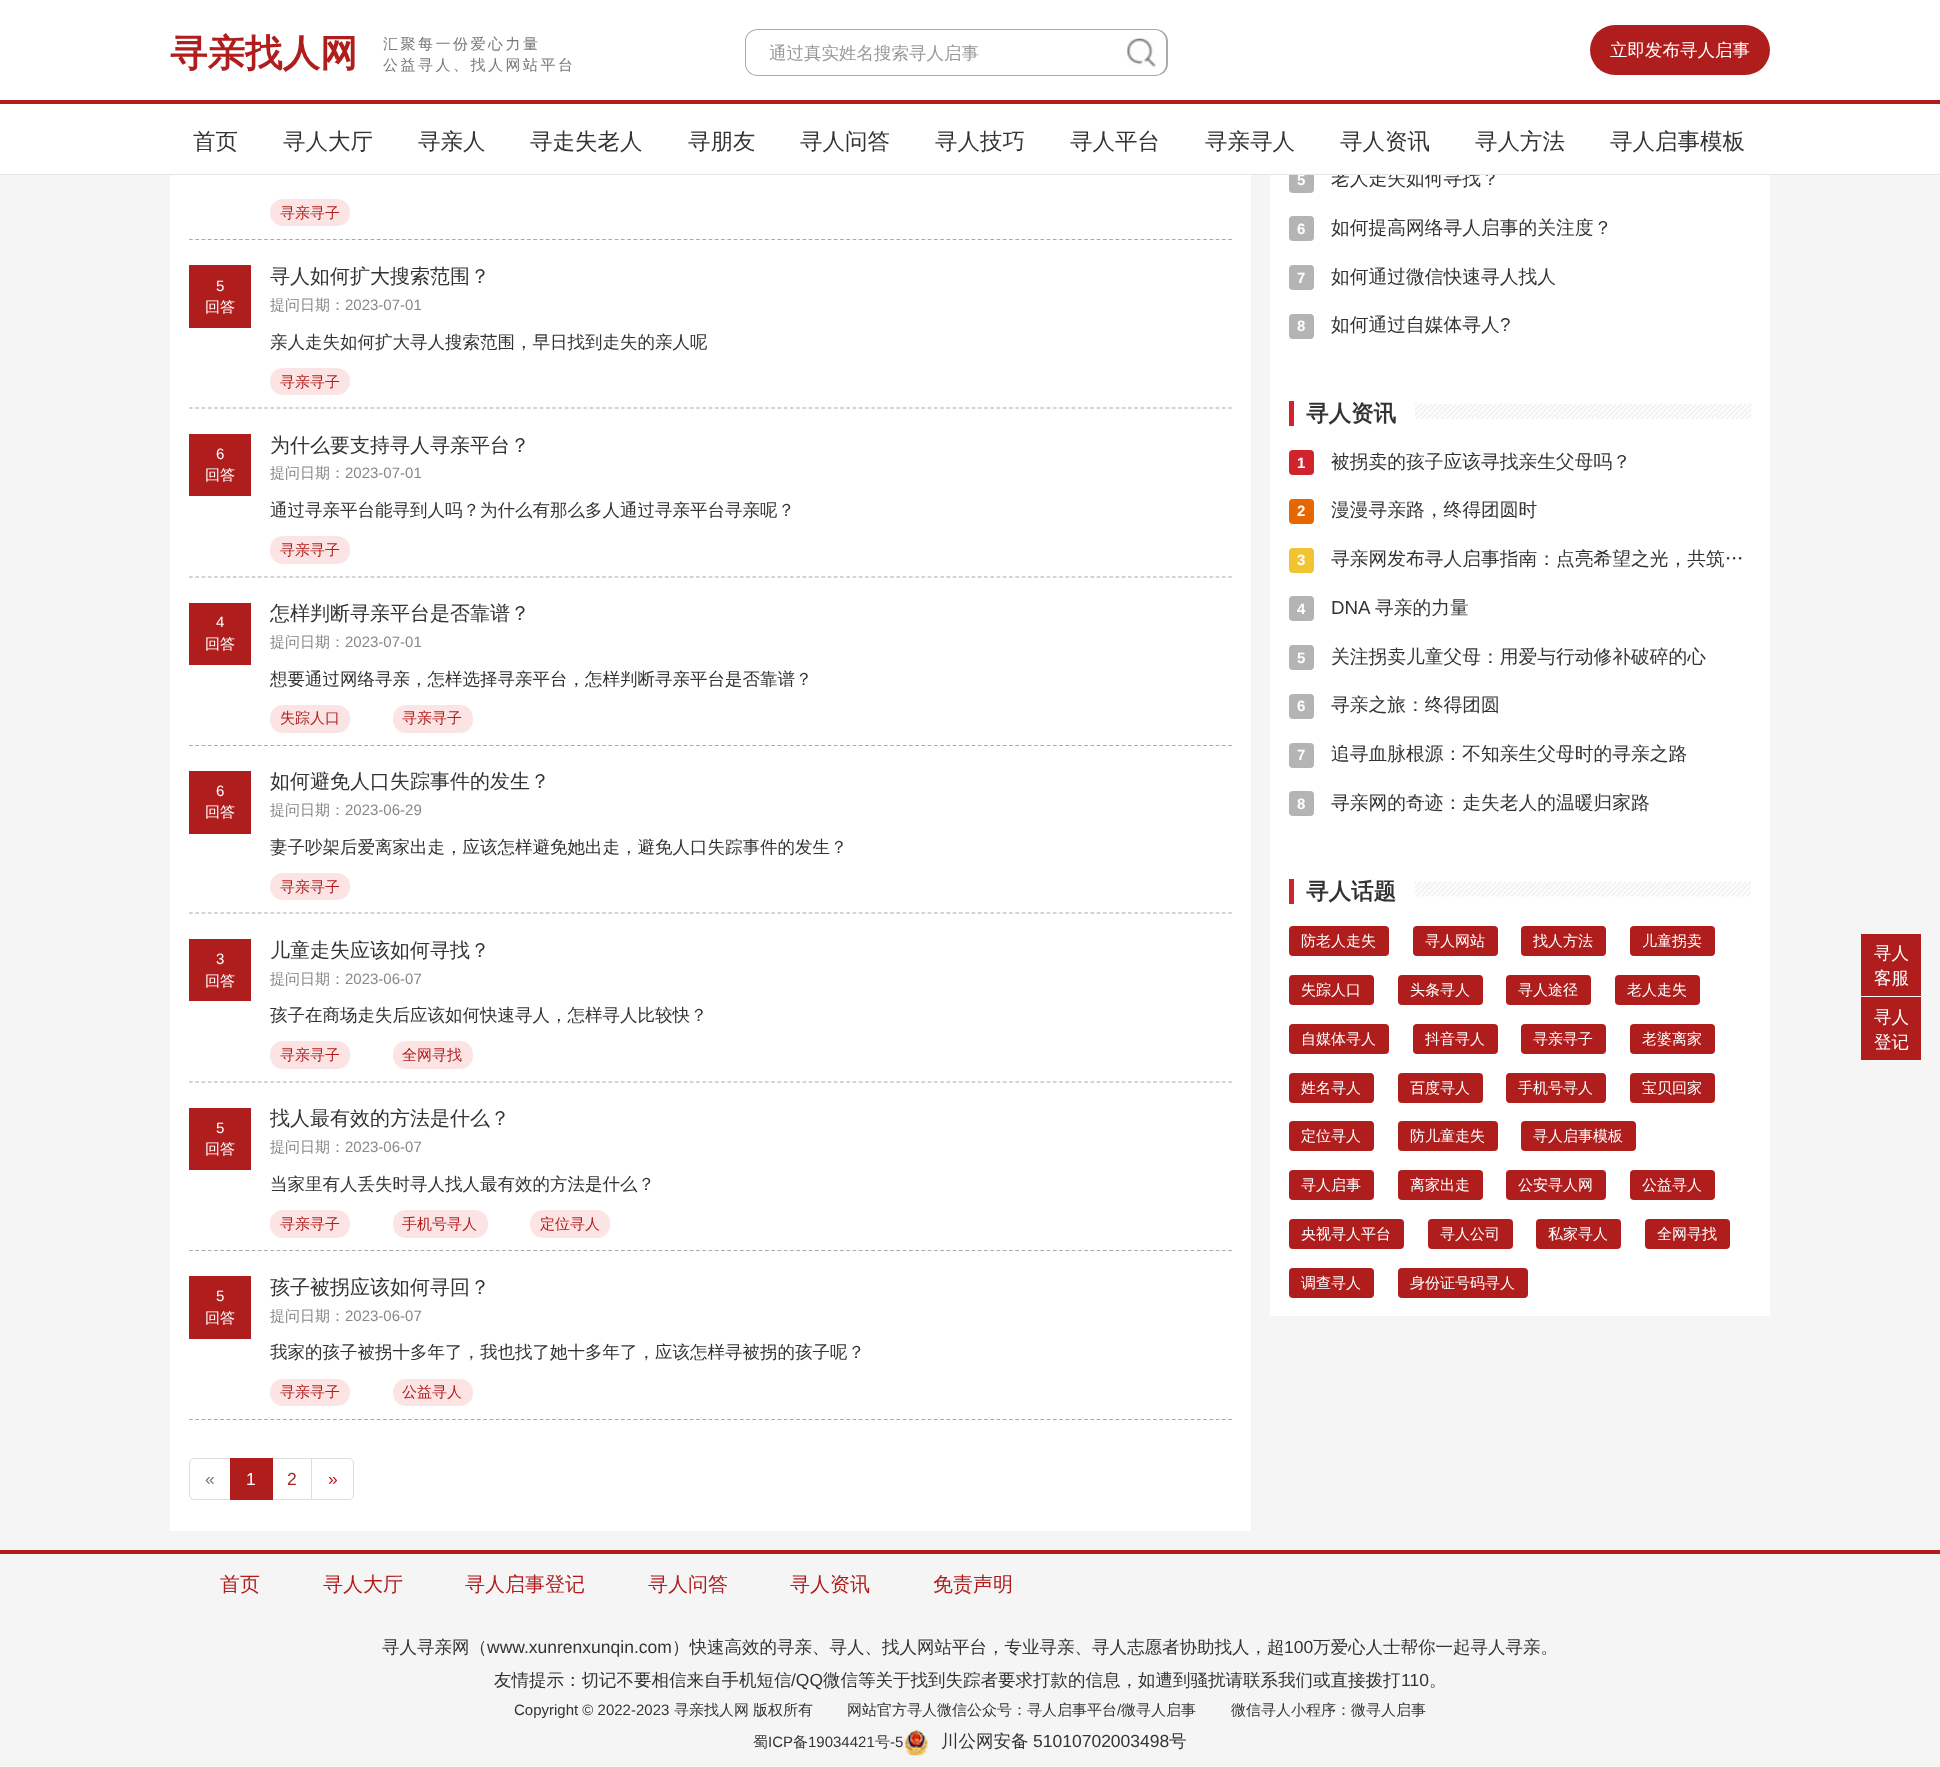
async function draw(canvas) {
	canvas.width = 1940;
	canvas.height = 1767;
	const c = canvas.getContext('2d');
	c.miterLimit = 4;
	c.fontKerning = 'normal';
	async function loadImage(src) {
		const img = new Image();
		img.src = src;
		await img.decode();
		return img;
	}

	c.fillStyle = '#f5f5f5';
	c.fillRect(0, 0, 1940, 1767);
	c.fillStyle = '#fff';
	c.fillRect(1270, 175, 500, 1141);
	c.fillStyle = '#b4b4b4';
	c.beginPath();
	c.roundRect(1289, 168, 25, 25, 4);
	c.fill();
	c.font = '500 18.75px WenQuanYi Zen Hei';
	c.fillStyle = '#333';
	c.fillText('老人走失如何寻找？', 1331, 185);
	c.fillStyle = '#fff';
	c.fillRect(0, 0, 1940, 174);
	c.font = 'bold 37.5px WenQuanYi Zen Hei';
	c.fillStyle = '#af1e1d';
	c.fillText('寻亲找人网', 170, 66);
	c.letterSpacing = '2.5px';
	c.font = '500 15px WenQuanYi Zen Hei';
	c.fillStyle = '#777';
	c.fillText('汇聚每一份爱心力量', 383, 49);
	c.fillText('公益寻人、找人网站平台', 383, 70);
	c.fillStyle = '#aaa';
	c.beginPath();
	c.moveTo(758, 29);
	c.lineTo(1128, 29);
	c.lineTo(1128, 76);
	c.lineTo(758, 76);
	c.bezierCurveTo(751, 76, 745, 71, 745, 64);
	c.lineTo(745, 41);
	c.bezierCurveTo(745, 34, 751, 29, 758, 29);
	c.closePath();
	c.moveTo(758, 30);
	c.lineTo(1128, 30);
	c.lineTo(1128, 75);
	c.lineTo(758, 75);
	c.bezierCurveTo(751, 75, 746, 70, 746, 64);
	c.lineTo(746, 41);
	c.bezierCurveTo(746, 35, 751, 30, 758, 30);
	c.closePath();
	c.fill('evenodd');
	c.letterSpacing = '0px';
	c.font = '500 17.5px WenQuanYi Zen Hei';
	c.fillStyle = '#999';
	c.fillText('通过真实姓名搜索寻人启事', 769, 59);
	c.drawImage(await loadImage('img1.png'), 1127, 38, 29, 29);
	c.fillStyle = '#aaa';
	c.beginPath();
	c.moveTo(1128, 29);
	c.lineTo(1155, 29);
	c.bezierCurveTo(1162, 29, 1168, 34, 1168, 41);
	c.lineTo(1168, 64);
	c.bezierCurveTo(1168, 71, 1162, 76, 1155, 76);
	c.lineTo(1128, 76);
	c.closePath();
	c.moveTo(1128, 30);
	c.lineTo(1155, 30);
	c.bezierCurveTo(1161, 30, 1166, 35, 1166, 41);
	c.lineTo(1166, 64);
	c.bezierCurveTo(1166, 70, 1161, 75, 1155, 75);
	c.lineTo(1128, 75);
	c.closePath();
	c.fill('evenodd');
	c.fillStyle = '#af1e1d';
	c.beginPath();
	c.roundRect(1590, 25, 180, 50, 25);
	c.fill();
	c.fillStyle = '#fff';
	c.fillText('立即发布寻人启事', 1610, 56);
	c.fillStyle = '#af1e1d';
	c.fillRect(0, 100, 1940, 4);
	c.font = 'bold 15px Liberation Sans';
	c.fillStyle = '#fff';
	c.fillText('5', 1297, 185);
	c.fillStyle = '#e5e5e5';
	c.fillRect(0, 174, 1940, 1);
	c.font = '500 22.5px WenQuanYi Zen Hei';
	c.fillStyle = '#333';
	for (const [text, x, y] of [
		['首页', 193, 149],
		['寻人大厅', 283, 149],
		['寻亲人', 418, 149],
		['寻走失老人', 530, 149],
		['寻朋友', 688, 149],
		['寻人问答', 800, 149],
		['寻人技巧', 935, 149],
		['寻人平台', 1070, 149],
		['寻亲寻人', 1205, 149],
		['寻人资讯', 1340, 149],
		['寻人方法', 1475, 149],
		['寻人启事模板', 1610, 149],
	]) {
		c.fillText(text, x, y);
	}
	c.fillStyle = '#fff';
	c.fillRect(170, 175, 1081, 1356);
	c.beginPath();
	c.moveTo(189, 239.5);
	c.lineTo(1232.5, 239.5);
	c.strokeStyle = '#aaa';
	c.lineWidth = 1.2;
	c.setLineDash([3.75, 2.51]);
	c.stroke();
	c.fillStyle = '#fde4e4';
	c.beginPath();
	c.roundRect(270, 199, 80, 27, 13);
	c.fill();
	c.font = '500 15px WenQuanYi Zen Hei';
	c.fillStyle = '#af1e1d';
	c.fillText('寻亲寻子', 280, 218);
	c.beginPath();
	c.moveTo(189, 408);
	c.lineTo(1232.5, 408);
	c.stroke();
	c.fillRect(189, 265, 62, 63);
	c.font = '15px Liberation Sans';
	c.fillStyle = '#fff';
	c.fillText('5', 216, 291);
	c.font = '500 15px WenQuanYi Zen Hei';
	c.fillText('回答', 205, 312);
	c.font = '500 20px WenQuanYi Zen Hei';
	c.fillStyle = '#333';
	c.fillText('寻人如何扩大搜索范围？', 270, 283);
	c.font = '500 15px WenQuanYi Zen Hei';
	c.fillStyle = '#878787';
	c.fillText('提问日期：', 270, 310);
	c.font = '15px Liberation Sans';
	c.fillText('2023-07-01', 345, 310);
	c.font = '500 17.5px WenQuanYi Zen Hei';
	c.fillStyle = '#333';
	c.fillText('亲人走失如何扩大寻人搜索范围，早日找到走失的亲人呢', 270, 348);
	c.fillStyle = '#fde4e4';
	c.beginPath();
	c.roundRect(270, 368, 80, 27, 13);
	c.fill();
	c.font = '500 15px WenQuanYi Zen Hei';
	c.fillStyle = '#af1e1d';
	c.fillText('寻亲寻子', 280, 387);
	c.beginPath();
	c.moveTo(189, 577);
	c.lineTo(1232.5, 577);
	c.stroke();
	c.fillRect(189, 434, 62, 62);
	c.font = '15px Liberation Sans';
	c.fillStyle = '#fff';
	c.fillText('6', 216, 459);
	c.font = '500 15px WenQuanYi Zen Hei';
	c.fillText('回答', 205, 480);
	c.font = '500 20px WenQuanYi Zen Hei';
	c.fillStyle = '#333';
	c.fillText('为什么要支持寻人寻亲平台？', 270, 452);
	c.font = '500 15px WenQuanYi Zen Hei';
	c.fillStyle = '#878787';
	c.fillText('提问日期：', 270, 478);
	c.font = '15px Liberation Sans';
	c.fillText('2023-07-01', 345, 478);
	c.font = '500 17.5px WenQuanYi Zen Hei';
	c.fillStyle = '#333';
	c.fillText('通过寻亲平台能寻到人吗？为什么有那么多人通过寻亲平台寻亲呢？', 270, 516);
	c.fillStyle = '#fde4e4';
	c.beginPath();
	c.roundRect(270, 536, 80, 28, 13);
	c.fill();
	c.font = '500 15px WenQuanYi Zen Hei';
	c.fillStyle = '#af1e1d';
	c.fillText('寻亲寻子', 280, 555);
	c.beginPath();
	c.moveTo(189, 745.5);
	c.lineTo(1232.5, 745.5);
	c.stroke();
	c.fillRect(189, 603, 62, 62);
	c.font = '15px Liberation Sans';
	c.fillStyle = '#fff';
	c.fillText('4', 216, 627);
	c.font = '500 15px WenQuanYi Zen Hei';
	c.fillText('回答', 205, 649);
	c.font = '500 20px WenQuanYi Zen Hei';
	c.fillStyle = '#333';
	c.fillText('怎样判断寻亲平台是否靠谱？', 270, 620);
	c.font = '500 15px WenQuanYi Zen Hei';
	c.fillStyle = '#878787';
	c.fillText('提问日期：', 270, 647);
	c.font = '15px Liberation Sans';
	c.fillText('2023-07-01', 345, 647);
	c.font = '500 17.5px WenQuanYi Zen Hei';
	c.fillStyle = '#333';
	c.fillText('想要通过网络寻亲，怎样选择寻亲平台，怎样判断寻亲平台是否靠谱？', 270, 685);
	c.fillStyle = '#fde4e4';
	c.beginPath();
	c.roundRect(270, 705, 80, 28, 13);
	c.fill();
	c.font = '500 15px WenQuanYi Zen Hei';
	c.fillStyle = '#af1e1d';
	c.fillText('失踪人口', 280, 723);
	c.fillStyle = '#fde4e4';
	c.beginPath();
	c.roundRect(393, 705, 80, 28, 13);
	c.fill();
	c.fillStyle = '#af1e1d';
	c.fillText('寻亲寻子', 402, 723);
	c.beginPath();
	c.moveTo(189, 913);
	c.lineTo(1232.5, 913);
	c.stroke();
	c.fillRect(189, 771, 62, 63);
	c.font = '15px Liberation Sans';
	c.fillStyle = '#fff';
	c.fillText('6', 216, 796);
	c.font = '500 15px WenQuanYi Zen Hei';
	c.fillText('回答', 205, 817);
	c.font = '500 20px WenQuanYi Zen Hei';
	c.fillStyle = '#333';
	c.fillText('如何避免人口失踪事件的发生？', 270, 788);
	c.font = '500 15px WenQuanYi Zen Hei';
	c.fillStyle = '#878787';
	c.fillText('提问日期：', 270, 815);
	c.font = '15px Liberation Sans';
	c.fillText('2023-06-29', 345, 815);
	c.font = '500 17.5px WenQuanYi Zen Hei';
	c.fillStyle = '#333';
	c.fillText('妻子吵架后爱离家出走，应该怎样避免她出走，避免人口失踪事件的发生？', 270, 853);
	c.fillStyle = '#fde4e4';
	c.beginPath();
	c.roundRect(270, 873, 80, 27, 13);
	c.fill();
	c.font = '500 15px WenQuanYi Zen Hei';
	c.fillStyle = '#af1e1d';
	c.fillText('寻亲寻子', 280, 892);
	c.beginPath();
	c.moveTo(189, 1082);
	c.lineTo(1232.5, 1082);
	c.stroke();
	c.fillRect(189, 939, 62, 62);
	c.font = '15px Liberation Sans';
	c.fillStyle = '#fff';
	c.fillText('3', 216, 964);
	c.font = '500 15px WenQuanYi Zen Hei';
	c.fillText('回答', 205, 986);
	c.font = '500 20px WenQuanYi Zen Hei';
	c.fillStyle = '#333';
	c.fillText('儿童走失应该如何寻找？', 270, 957);
	c.font = '500 15px WenQuanYi Zen Hei';
	c.fillStyle = '#878787';
	c.fillText('提问日期：', 270, 984);
	c.font = '15px Liberation Sans';
	c.fillText('2023-06-07', 345, 984);
	c.font = '500 17.5px WenQuanYi Zen Hei';
	c.fillStyle = '#333';
	c.fillText('孩子在商场走失后应该如何快速寻人，怎样寻人比较快？', 270, 1021);
	c.fillStyle = '#fde4e4';
	c.beginPath();
	c.roundRect(270, 1041, 80, 28, 13);
	c.fill();
	c.font = '500 15px WenQuanYi Zen Hei';
	c.fillStyle = '#af1e1d';
	c.fillText('寻亲寻子', 280, 1060);
	c.fillStyle = '#fde4e4';
	c.beginPath();
	c.roundRect(393, 1041, 80, 28, 13);
	c.fill();
	c.fillStyle = '#af1e1d';
	c.fillText('全网寻找', 402, 1060);
	c.beginPath();
	c.moveTo(189, 1250.5);
	c.lineTo(1232.5, 1250.5);
	c.stroke();
	c.fillRect(189, 1108, 62, 62);
	c.font = '15px Liberation Sans';
	c.fillStyle = '#fff';
	c.fillText('5', 216, 1133);
	c.font = '500 15px WenQuanYi Zen Hei';
	c.fillText('回答', 205, 1154);
	c.font = '500 20px WenQuanYi Zen Hei';
	c.fillStyle = '#333';
	c.fillText('找人最有效的方法是什么？', 270, 1125);
	c.font = '500 15px WenQuanYi Zen Hei';
	c.fillStyle = '#878787';
	c.fillText('提问日期：', 270, 1152);
	c.font = '15px Liberation Sans';
	c.fillText('2023-06-07', 345, 1152);
	c.font = '500 17.5px WenQuanYi Zen Hei';
	c.fillStyle = '#333';
	c.fillText('当家里有人丢失时寻人找人最有效的方法是什么？', 270, 1190);
	c.fillStyle = '#fde4e4';
	c.beginPath();
	c.roundRect(270, 1210, 80, 28, 13);
	c.fill();
	c.font = '500 15px WenQuanYi Zen Hei';
	c.fillStyle = '#af1e1d';
	c.fillText('寻亲寻子', 280, 1229);
	c.fillStyle = '#fde4e4';
	c.beginPath();
	c.roundRect(393, 1210, 95, 28, 13);
	c.fill();
	c.fillStyle = '#af1e1d';
	c.fillText('手机号寻人', 402, 1229);
	c.fillStyle = '#fde4e4';
	c.beginPath();
	c.roundRect(530, 1210, 80, 28, 13);
	c.fill();
	c.fillStyle = '#af1e1d';
	c.fillText('定位寻人', 540, 1229);
	c.beginPath();
	c.moveTo(189, 1419.5);
	c.lineTo(1232.5, 1419.5);
	c.stroke();
	c.fillRect(189, 1276, 62, 63);
	c.font = '15px Liberation Sans';
	c.fillStyle = '#fff';
	c.fillText('5', 216, 1301);
	c.font = '500 15px WenQuanYi Zen Hei';
	c.fillText('回答', 205, 1323);
	c.font = '500 20px WenQuanYi Zen Hei';
	c.fillStyle = '#333';
	c.fillText('孩子被拐应该如何寻回？', 270, 1294);
	c.font = '500 15px WenQuanYi Zen Hei';
	c.fillStyle = '#878787';
	c.fillText('提问日期：', 270, 1321);
	c.font = '15px Liberation Sans';
	c.fillText('2023-06-07', 345, 1321);
	c.font = '500 17.5px WenQuanYi Zen Hei';
	c.fillStyle = '#333';
	c.fillText('我家的孩子被拐十多年了，我也找了她十多年了，应该怎样寻被拐的孩子呢？', 270, 1358);
	c.fillStyle = '#fde4e4';
	c.beginPath();
	c.roundRect(270, 1379, 80, 27, 13);
	c.fill();
	c.font = '500 15px WenQuanYi Zen Hei';
	c.fillStyle = '#af1e1d';
	c.fillText('寻亲寻子', 280, 1397);
	c.fillStyle = '#fde4e4';
	c.beginPath();
	c.roundRect(393, 1379, 80, 27, 13);
	c.fill();
	c.fillStyle = '#af1e1d';
	c.fillText('公益寻人', 402, 1397);
	c.beginPath();
	c.roundRect(189.5, 1458.5, 41, 41, [4.5, 0, 0, 4.5]);
	c.strokeStyle = '#ddd';
	c.lineWidth = 1;
	c.setLineDash([]);
	c.stroke();
	c.font = '17.5px Liberation Sans';
	c.fillStyle = '#777';
	c.fillText('«', 205, 1485);
	c.strokeRect(271.5, 1458.5, 41, 41);
	c.fillStyle = '#af1e1d';
	c.fillRect(230, 1458, 43, 42);
	c.fillStyle = '#fff';
	c.fillText('1', 246, 1485);
	c.fillStyle = '#af1e1d';
	c.fillText('2', 287, 1485);
	c.fillStyle = '#fff';
	c.beginPath();
	c.roundRect(311.5, 1458.5, 42, 41, [0, 4.5, 4.5, 0]);
	c.fill();
	c.stroke();
	c.fillStyle = '#af1e1d';
	c.fillText('»', 328, 1485);
	c.fillStyle = '#b4b4b4';
	c.beginPath();
	c.roundRect(1289, 216, 25, 25, 4);
	c.fill();
	c.font = 'bold 15px Liberation Sans';
	c.fillStyle = '#fff';
	c.fillText('6', 1297, 234);
	c.font = '500 18.75px WenQuanYi Zen Hei';
	c.fillStyle = '#333';
	c.fillText('如何提高网络寻人启事的关注度？', 1331, 234);
	c.fillStyle = '#b4b4b4';
	c.beginPath();
	c.roundRect(1289, 265, 25, 25, 4);
	c.fill();
	c.font = 'bold 15px Liberation Sans';
	c.fillStyle = '#fff';
	c.fillText('7', 1297, 283);
	c.font = '500 18.75px WenQuanYi Zen Hei';
	c.fillStyle = '#333';
	c.fillText('如何通过微信快速寻人找人', 1331, 283);
	c.fillStyle = '#b4b4b4';
	c.beginPath();
	c.roundRect(1289, 314, 25, 25, 4);
	c.fill();
	c.font = 'bold 15px Liberation Sans';
	c.fillStyle = '#fff';
	c.fillText('8', 1297, 331);
	c.font = '500 18.75px WenQuanYi Zen Hei';
	c.fillStyle = '#333';
	c.fillText('如何通过自媒体寻人', 1331, 331);
	c.font = '18.75px Liberation Sans';
	c.fillText('?', 1500, 331);
	c.drawImage(await loadImage('img2.png'), 1415, 404, 337, 15);
	c.font = 'bold 22.5px WenQuanYi Zen Hei';
	c.fillText('寻人资讯', 1306, 421);
	c.fillStyle = '#d0232b';
	c.fillRect(1289, 401, 5, 25);
	c.beginPath();
	c.roundRect(1289, 450, 25, 25, 4);
	c.fill();
	c.font = 'bold 15px Liberation Sans';
	c.fillStyle = '#fff';
	c.fillText('1', 1297, 468);
	c.font = '500 18.75px WenQuanYi Zen Hei';
	c.fillStyle = '#333';
	c.fillText('被拐卖的孩子应该寻找亲生父母吗？', 1331, 468);
	c.fillStyle = '#e66601';
	c.beginPath();
	c.roundRect(1289, 499, 25, 25, 4);
	c.fill();
	c.font = 'bold 15px Liberation Sans';
	c.fillStyle = '#fff';
	c.fillText('2', 1297, 516);
	c.font = '500 18.75px WenQuanYi Zen Hei';
	c.fillStyle = '#333';
	c.fillText('漫漫寻亲路，终得团圆时', 1331, 516);
	c.fillStyle = '#f2c431';
	c.beginPath();
	c.roundRect(1289, 548, 25, 25, 4);
	c.fill();
	c.font = 'bold 15px Liberation Sans';
	c.fillStyle = '#fff';
	c.fillText('3', 1297, 565);
	c.font = '500 18.75px WenQuanYi Zen Hei';
	c.fillStyle = '#333';
	c.fillText('寻亲网发布寻人启事指南：点亮希望之光，共筑…', 1331, 565);
	c.fillStyle = '#b4b4b4';
	c.beginPath();
	c.roundRect(1289, 596, 25, 25, 4);
	c.fill();
	c.font = 'bold 15px Liberation Sans';
	c.fillStyle = '#fff';
	c.fillText('4', 1297, 614);
	c.font = '18.75px Liberation Sans';
	c.fillStyle = '#333';
	c.fillText('DNA', 1331, 614);
	c.font = '500 18.75px WenQuanYi Zen Hei';
	c.fillText('寻亲的力量', 1375, 614);
	c.fillStyle = '#b4b4b4';
	c.beginPath();
	c.roundRect(1289, 645, 25, 25, 4);
	c.fill();
	c.font = 'bold 15px Liberation Sans';
	c.fillStyle = '#fff';
	c.fillText('5', 1297, 663);
	c.font = '500 18.75px WenQuanYi Zen Hei';
	c.fillStyle = '#333';
	c.fillText('关注拐卖儿童父母：用爱与行动修补破碎的心', 1331, 663);
	c.fillStyle = '#b4b4b4';
	c.beginPath();
	c.roundRect(1289, 694, 25, 25, 4);
	c.fill();
	c.font = 'bold 15px Liberation Sans';
	c.fillStyle = '#fff';
	c.fillText('6', 1297, 711);
	c.font = '500 18.75px WenQuanYi Zen Hei';
	c.fillStyle = '#333';
	c.fillText('寻亲之旅：终得团圆', 1331, 711);
	c.fillStyle = '#b4b4b4';
	c.beginPath();
	c.roundRect(1289, 743, 25, 25, 4);
	c.fill();
	c.font = 'bold 15px Liberation Sans';
	c.fillStyle = '#fff';
	c.fillText('7', 1297, 760);
	c.font = '500 18.75px WenQuanYi Zen Hei';
	c.fillStyle = '#333';
	c.fillText('追寻血脉根源：不知亲生父母时的寻亲之路', 1331, 760);
	c.fillStyle = '#b4b4b4';
	c.beginPath();
	c.roundRect(1289, 791, 25, 25, 4);
	c.fill();
	c.font = 'bold 15px Liberation Sans';
	c.fillStyle = '#fff';
	c.fillText('8', 1297, 809);
	c.font = '500 18.75px WenQuanYi Zen Hei';
	c.fillStyle = '#333';
	c.fillText('寻亲网的奇迹：走失老人的温暖归家路', 1331, 809);
	c.drawImage(await loadImage('img3.png'), 1288, 881, 463, 16);
	c.fillStyle = '#fff';
	c.fillRect(1294, 881, 121, 16);
	c.font = 'bold 22.5px WenQuanYi Zen Hei';
	c.fillStyle = '#333';
	c.fillText('寻人话题', 1306, 899);
	c.fillStyle = '#d0232b';
	c.fillRect(1289, 879, 5, 25);
	c.fillStyle = '#af1e1d';
	c.beginPath();
	c.roundRect(1289, 926, 100, 30, 4);
	c.fill();
	c.font = '500 15px WenQuanYi Zen Hei';
	c.fillStyle = '#fff';
	c.fillText('防老人走失', 1301, 946);
	c.fillStyle = '#af1e1d';
	c.beginPath();
	c.roundRect(1413, 926, 85, 30, 4);
	c.fill();
	c.fillStyle = '#fff';
	c.fillText('寻人网站', 1425, 946);
	c.fillStyle = '#af1e1d';
	c.beginPath();
	c.roundRect(1521, 926, 85, 30, 4);
	c.fill();
	c.fillStyle = '#fff';
	c.fillText('找人方法', 1533, 946);
	c.fillStyle = '#af1e1d';
	c.beginPath();
	c.roundRect(1630, 926, 85, 30, 4);
	c.fill();
	c.fillStyle = '#fff';
	c.fillText('儿童拐卖', 1642, 946);
	c.fillStyle = '#af1e1d';
	c.beginPath();
	c.roundRect(1289, 975, 85, 30, 4);
	c.fill();
	c.fillStyle = '#fff';
	c.fillText('失踪人口', 1301, 995);
	c.fillStyle = '#af1e1d';
	c.beginPath();
	c.roundRect(1398, 975, 85, 30, 4);
	c.fill();
	c.fillStyle = '#fff';
	c.fillText('头条寻人', 1410, 995);
	c.fillStyle = '#af1e1d';
	c.beginPath();
	c.roundRect(1506, 975, 85, 30, 4);
	c.fill();
	c.fillStyle = '#fff';
	c.fillText('寻人途径', 1518, 995);
	c.fillStyle = '#af1e1d';
	c.beginPath();
	c.roundRect(1615, 975, 85, 30, 4);
	c.fill();
	c.fillStyle = '#fff';
	c.fillText('老人走失', 1627, 995);
	c.fillStyle = '#af1e1d';
	c.beginPath();
	c.roundRect(1289, 1024, 100, 30, 4);
	c.fill();
	c.fillStyle = '#fff';
	c.fillText('自媒体寻人', 1301, 1044);
	c.fillStyle = '#af1e1d';
	c.beginPath();
	c.roundRect(1413, 1024, 85, 30, 4);
	c.fill();
	c.fillStyle = '#fff';
	c.fillText('抖音寻人', 1425, 1044);
	c.fillStyle = '#af1e1d';
	c.beginPath();
	c.roundRect(1521, 1024, 85, 30, 4);
	c.fill();
	c.fillStyle = '#fff';
	c.fillText('寻亲寻子', 1533, 1044);
	c.fillStyle = '#af1e1d';
	c.beginPath();
	c.roundRect(1630, 1024, 85, 30, 4);
	c.fill();
	c.fillStyle = '#fff';
	c.fillText('老婆离家', 1642, 1044);
	c.fillStyle = '#af1e1d';
	c.beginPath();
	c.roundRect(1289, 1073, 85, 30, 4);
	c.fill();
	c.fillStyle = '#fff';
	c.fillText('姓名寻人', 1301, 1093);
	c.fillStyle = '#af1e1d';
	c.beginPath();
	c.roundRect(1398, 1073, 85, 30, 4);
	c.fill();
	c.fillStyle = '#fff';
	c.fillText('百度寻人', 1410, 1093);
	c.fillStyle = '#af1e1d';
	c.beginPath();
	c.roundRect(1506, 1073, 100, 30, 4);
	c.fill();
	c.fillStyle = '#fff';
	c.fillText('手机号寻人', 1518, 1093);
	c.fillStyle = '#af1e1d';
	c.beginPath();
	c.roundRect(1630, 1073, 85, 30, 4);
	c.fill();
	c.fillStyle = '#fff';
	c.fillText('宝贝回家', 1642, 1093);
	c.fillStyle = '#af1e1d';
	c.beginPath();
	c.roundRect(1289, 1121, 85, 30, 4);
	c.fill();
	c.fillStyle = '#fff';
	c.fillText('定位寻人', 1301, 1141);
	c.fillStyle = '#af1e1d';
	c.beginPath();
	c.roundRect(1398, 1121, 100, 30, 4);
	c.fill();
	c.fillStyle = '#fff';
	c.fillText('防儿童走失', 1410, 1141);
	c.fillStyle = '#af1e1d';
	c.beginPath();
	c.roundRect(1521, 1121, 115, 30, 4);
	c.fill();
	c.fillStyle = '#fff';
	c.fillText('寻人启事模板', 1533, 1141);
	c.fillStyle = '#af1e1d';
	c.beginPath();
	c.roundRect(1289, 1170, 85, 30, 4);
	c.fill();
	c.fillStyle = '#fff';
	c.fillText('寻人启事', 1301, 1190);
	c.fillStyle = '#af1e1d';
	c.beginPath();
	c.roundRect(1398, 1170, 85, 30, 4);
	c.fill();
	c.fillStyle = '#fff';
	c.fillText('离家出走', 1410, 1190);
	c.fillStyle = '#af1e1d';
	c.beginPath();
	c.roundRect(1506, 1170, 100, 30, 4);
	c.fill();
	c.fillStyle = '#fff';
	c.fillText('公安寻人网', 1518, 1190);
	c.fillStyle = '#af1e1d';
	c.beginPath();
	c.roundRect(1630, 1170, 85, 30, 4);
	c.fill();
	c.fillStyle = '#fff';
	c.fillText('公益寻人', 1642, 1190);
	c.fillStyle = '#af1e1d';
	c.beginPath();
	c.roundRect(1289, 1219, 115, 30, 4);
	c.fill();
	c.fillStyle = '#fff';
	c.fillText('央视寻人平台', 1301, 1239);
	c.fillStyle = '#af1e1d';
	c.beginPath();
	c.roundRect(1428, 1219, 85, 30, 4);
	c.fill();
	c.fillStyle = '#fff';
	c.fillText('寻人公司', 1440, 1239);
	c.fillStyle = '#af1e1d';
	c.beginPath();
	c.roundRect(1536, 1219, 85, 30, 4);
	c.fill();
	c.fillStyle = '#fff';
	c.fillText('私家寻人', 1548, 1239);
	c.fillStyle = '#af1e1d';
	c.beginPath();
	c.roundRect(1645, 1219, 85, 30, 4);
	c.fill();
	c.fillStyle = '#fff';
	c.fillText('全网寻找', 1657, 1239);
	c.fillStyle = '#af1e1d';
	c.beginPath();
	c.roundRect(1289, 1268, 85, 30, 4);
	c.fill();
	c.fillStyle = '#fff';
	c.fillText('调查寻人', 1301, 1288);
	c.fillStyle = '#af1e1d';
	c.beginPath();
	c.roundRect(1398, 1268, 130, 30, 4);
	c.fill();
	c.fillStyle = '#fff';
	c.fillText('身份证号码寻人', 1410, 1288);
	c.fillStyle = '#af1e1d';
	c.fillRect(1861, 934, 60, 126);
	c.fillStyle = '#fff';
	c.fillRect(1861, 996, 60, 1);
	c.font = '500 17.5px WenQuanYi Zen Hei';
	for (const [text, x, y] of [
		['寻人', 1874, 959],
		['客服', 1874, 984],
		['寻人', 1874, 1023],
		['登记', 1874, 1048],
	]) {
		c.fillText(text, x, y);
	}
	c.fillStyle = '#af1e1d';
	c.fillRect(0, 1550, 1940, 4);
	c.font = '500 20px WenQuanYi Zen Hei';
	for (const [text, x, y] of [
		['首页', 220, 1591],
		['寻人大厅', 323, 1591],
		['寻人启事登记', 465, 1591],
		['寻人问答', 648, 1591],
		['寻人资讯', 790, 1591],
		['免责声明', 933, 1591],
	]) {
		c.fillText(text, x, y);
	}
	c.font = '500 17.5px WenQuanYi Zen Hei';
	c.fillStyle = '#333';
	c.fillText('寻人寻亲网（', 382, 1653);
	c.font = '17.5px Liberation Sans';
	c.fillText('www.xunrenxunqin.com', 487, 1653);
	c.font = '500 17.5px WenQuanYi Zen Hei';
	c.fillText('）快速高效的寻亲、寻人、找人网站平台，专业寻亲、寻人志愿者协助找人，超', 672, 1653);
	c.font = '17.5px Liberation Sans';
	c.fillText('100', 1284, 1653);
	c.font = '500 17.5px WenQuanYi Zen Hei';
	c.fillText('万爱心人士帮你一起寻人寻亲。', 1313, 1653);
	c.fillText('友情提示：切记不要相信来自手机短信', 494, 1686);
	c.font = '17.5px Liberation Sans';
	c.fillText('/QQ', 791, 1686);
	c.font = '500 17.5px WenQuanYi Zen Hei';
	c.fillText('微信等关于找到失踪者要求打款的信息，如遭到骚扰请联系我们或直接拨打', 823, 1686);
	c.font = '17.5px Liberation Sans';
	c.fillText('110', 1401, 1686);
	c.font = '500 17.5px WenQuanYi Zen Hei';
	c.fillText('。', 1429, 1686);
	c.font = '15px Liberation Sans';
	c.fillText('Copyright © 2022-2023', 514, 1715);
	c.font = '500 15px WenQuanYi Zen Hei';
	for (const [text, x, y] of [
		['寻亲找人网', 674, 1715],
		['版权所有', 753, 1715],
		['网站官方寻人微信公众号：寻人启事平台', 847, 1715],
	]) {
		c.fillText(text, x, y);
	}
	c.font = '15px Liberation Sans';
	c.fillText('/', 1117, 1715);
	c.font = '500 15px WenQuanYi Zen Hei';
	for (const [text, x, y] of [
		['微寻人启事', 1121, 1715],
		['微信寻人小程序：微寻人启事', 1231, 1715],
		['蜀', 753, 1747],
	]) {
		c.fillText(text, x, y);
	}
	c.font = '15px Liberation Sans';
	c.fillText('ICP', 768, 1747);
	c.font = '500 15px WenQuanYi Zen Hei';
	c.fillText('备', 793, 1747);
	c.font = '15px Liberation Sans';
	c.fillText('19034421', 808, 1747);
	c.font = '500 15px WenQuanYi Zen Hei';
	c.fillText('号', 875, 1747);
	c.font = '15px Liberation Sans';
	c.fillText('-5', 890, 1747);
	c.drawImage(await loadImage('img4.png'), 904, 1730, 24, 26);
	c.font = '500 17.5px WenQuanYi Zen Hei';
	c.fillText('川公网安备', 941, 1747);
	c.font = '17.5px Liberation Sans';
	c.fillText('51010702003498', 1033, 1747);
	c.font = '500 17.5px WenQuanYi Zen Hei';
	c.fillText('号', 1169, 1747);
}

draw(document.querySelector('canvas'));
